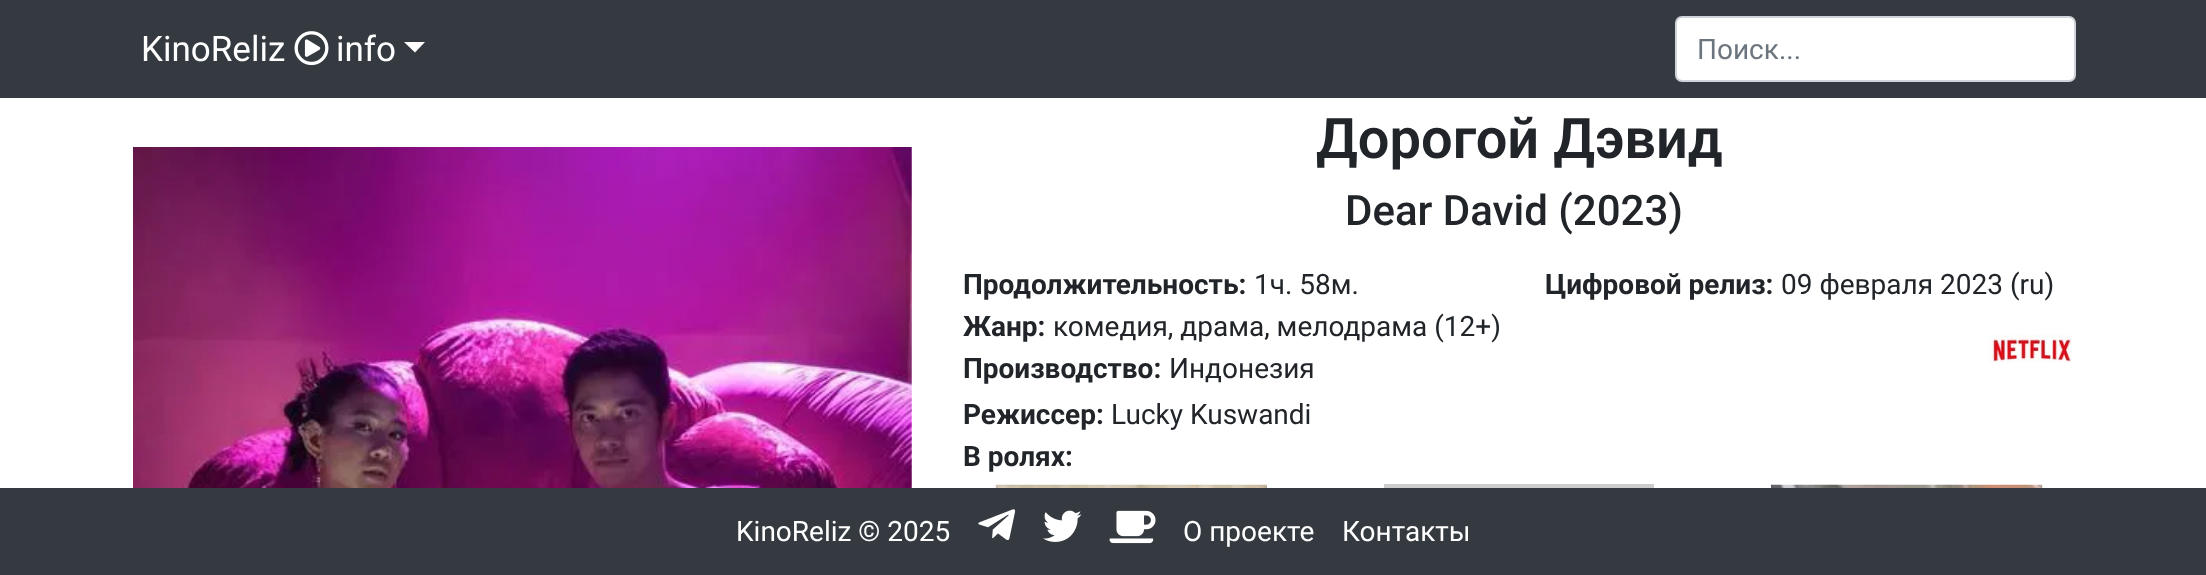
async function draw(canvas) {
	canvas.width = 2206;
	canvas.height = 575;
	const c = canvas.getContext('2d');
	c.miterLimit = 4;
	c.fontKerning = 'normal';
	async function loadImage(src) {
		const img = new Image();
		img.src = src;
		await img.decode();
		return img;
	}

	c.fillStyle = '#fff';
	c.fillRect(0, 0, 2206, 575);
	c.fillStyle = '#343a40';
	c.fillRect(0, 0, 2206, 98);
	c.font = '35px Roboto';
	c.fillStyle = '#fff';
	c.fillText('KinoReliz', 141, 61);
	c.drawImage(await loadImage('img1.png'), 294, 31, 35, 35);
	c.fillText('info', 336, 61);
	c.beginPath();
	c.moveTo(404, 42);
	c.lineTo(425, 42);
	c.lineTo(415, 52.5);
	c.closePath();
	c.fill();
	c.beginPath();
	c.roundRect(1676, 17, 399, 64, 6);
	c.fill();
	c.strokeStyle = '#ced4da';
	c.lineWidth = 2;
	c.stroke();
	c.font = '28px Roboto';
	c.fillStyle = '#6c757d';
	c.fillText('Поиск...', 1697, 59);
	c.drawImage(await loadImage('img2.png'), 133, 147, 779, 341);
	c.font = '600 56px Roboto';
	c.fillStyle = '#212529';
	c.fillText('Дорогой Дэвид', 1316, 158);
	c.font = '500 42px Roboto';
	c.fillText('Dear David (2023)', 1345, 225);
	c.font = 'bold 28px Roboto';
	c.fillText('Продолжительность:', 963, 294);
	c.font = '28px Roboto';
	c.fillText('1ч. 58м.', 1254, 294);
	c.font = 'bold 28px Roboto';
	c.fillText('Цифровой релиз:', 1545, 294);
	c.font = '28px Roboto';
	c.fillText('09 февраля 2023 (ru)', 1781, 294);
	c.font = 'bold 28px Roboto';
	c.fillText('Жанр:', 963, 336);
	c.font = '28px Roboto';
	c.fillText('комедия, драма, мелодрама (12+)', 1053, 336);
	c.font = 'bold 28px Roboto';
	c.fillText('Производство:', 963, 378);
	c.font = '28px Roboto';
	c.fillText('Индонезия', 1169, 378);
	c.drawImage(await loadImage('img3.png'), 1988, 334, 84, 29);
	c.font = 'bold 28px Roboto';
	c.fillText('Режиссер:', 963, 424);
	c.font = '28px Roboto';
	c.fillText('Lucky Kuswandi', 1111, 424);
	c.font = 'bold 28px Roboto';
	c.fillText('В ролях:', 963, 466);
	c.drawImage(await loadImage('img4.png'), 995, 484, 272, 4);
	c.fillStyle = '#ccc';
	c.fillRect(1384, 484, 270, 4);
	c.drawImage(await loadImage('img5.png'), 1771, 484, 272, 4);
	c.fillStyle = '#343a40';
	c.fillRect(0, 488, 2206, 87);
	c.font = '28px Roboto';
	c.fillStyle = '#fff';
	c.fillText('KinoReliz © 2025', 736, 541);
	c.drawImage(await loadImage('img6.png'), 978, 509, 38, 32);
	c.drawImage(await loadImage('img7.png'), 1043, 510, 39, 32);
	c.drawImage(await loadImage('img8.png'), 1109, 510, 47, 34);
	c.fillText('О проекте', 1183, 541);
	c.fillText('Контакты', 1342, 541);
}

draw(document.querySelector('canvas'));
